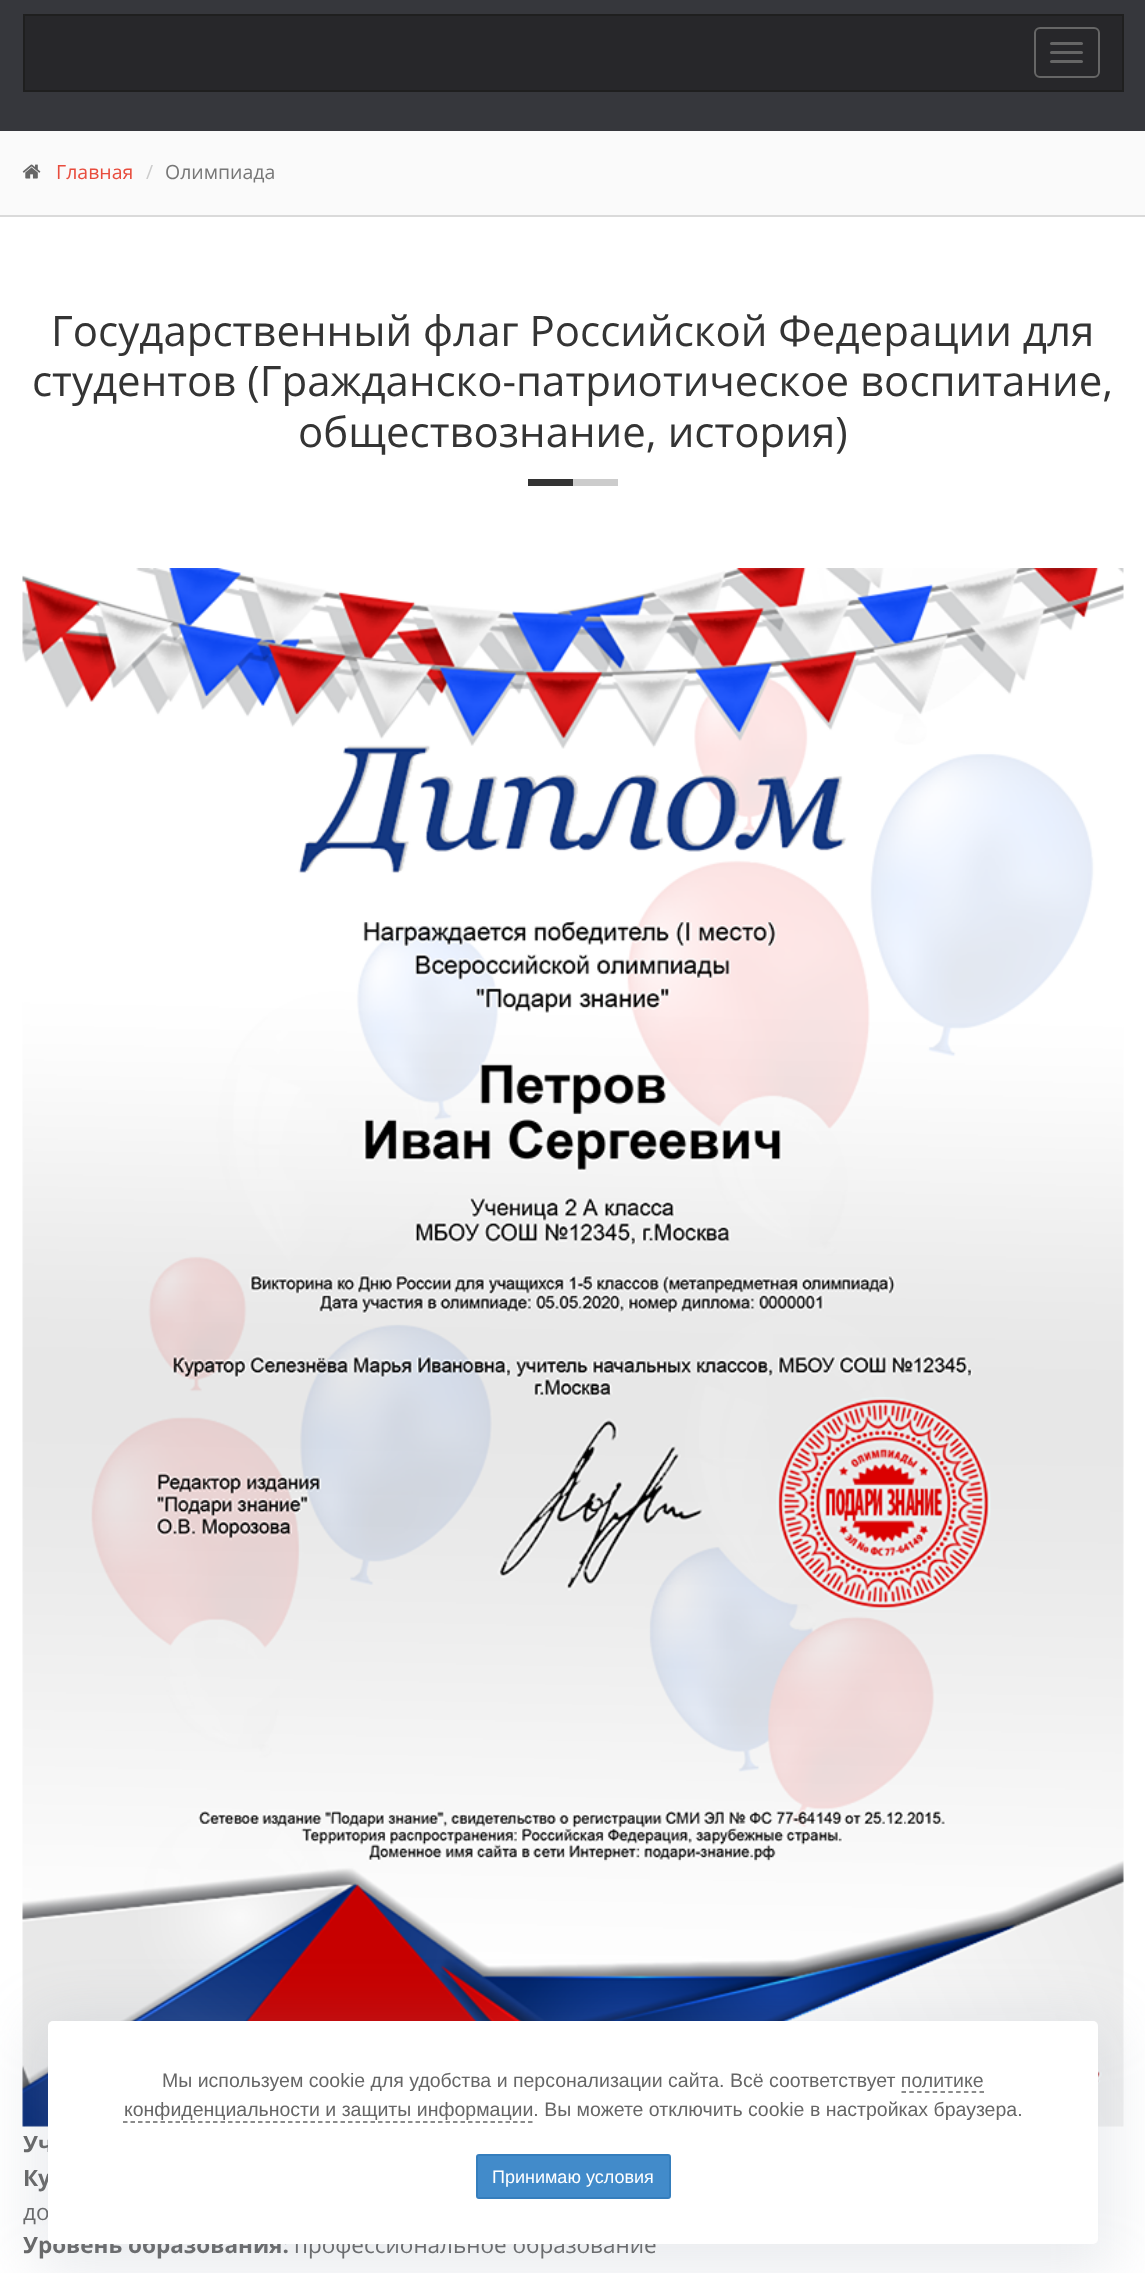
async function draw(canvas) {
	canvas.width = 1145;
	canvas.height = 2273;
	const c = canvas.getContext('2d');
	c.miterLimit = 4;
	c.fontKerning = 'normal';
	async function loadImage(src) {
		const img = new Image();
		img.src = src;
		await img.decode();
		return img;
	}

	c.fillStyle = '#fff';
	c.fillRect(0, 0, 1145, 2273);
	c.fillStyle = '#36373c';
	c.fillRect(0, 0, 1145, 131);
	c.fillStyle = '#27272a';
	c.beginPath();
	c.rect(24, 15, 1099, 76);
	c.fill();
	c.strokeStyle = '#1f1f1f';
	c.lineWidth = 2;
	c.stroke();
	c.beginPath();
	c.roundRect(1035, 28, 64, 49, 5);
	c.strokeStyle = '#666';
	c.stroke();
	c.fillStyle = '#666';
	c.beginPath();
	c.roundRect(1050, 42, 33, 3, 1.5);
	c.fill();
	c.beginPath();
	c.roundRect(1050, 51, 33, 3, 1.5);
	c.fill();
	c.beginPath();
	c.roundRect(1050, 60, 33, 3, 1.5);
	c.fill();
	c.fillStyle = '#fafafa';
	c.fillRect(0, 131, 1145, 84);
	c.fillStyle = '#dadada';
	c.fillRect(0, 215, 1145, 2);
	c.drawImage(await loadImage('img1.png'), 22, 164, 19, 15);
	c.font = '19.5px Open Sans';
	c.fillStyle = '#e84c3d';
	c.fillText('Главная', 56, 179);
	c.fillStyle = '#ccc';
	c.fillText('/', 146, 179);
	c.fillStyle = '#777';
	c.fillText('Олимпиада', 165, 179);
	c.font = '42px Open Sans';
	c.fillStyle = '#343434';
	for (const [text, x, y] of [
		['Государственный флаг Российской Федерации для', 51, 346],
		['студентов (Гражданско-патриотическое воспитание,', 32, 396],
		['обществознание, история)', 298, 447],
	]) {
		c.fillText(text, x, y);
	}
	c.fillStyle = '#ccc';
	c.fillRect(573, 479, 45, 7);
	c.fillStyle = '#333';
	c.fillRect(528, 479, 45, 7);
	c.drawImage(await loadImage('img2.png'), 22, 568, 1102, 1559);
	c.font = 'bold 22.5px Open Sans';
	c.fillStyle = '#666';
	c.fillText('Уч', 23, 2152);
	c.fillText('Ку', 23, 2186);
	c.font = '22.5px Open Sans';
	c.fillText('до', 23, 2220);
	c.font = 'bold 22.5px Open Sans';
	c.fillText('Уровень образования:', 23, 2253);
	c.font = '22.5px Open Sans';
	c.fillText('профессиональное образование', 294, 2253);
	c.fillStyle = '#8c98a42e';
	c.filter = 'blur(30px)';
	c.beginPath();
	c.roundRect(33, 2021, 1080, 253, 20);
	c.fill();
	c.filter = 'none';
	c.fillStyle = '#fff';
	c.beginPath();
	c.roundRect(48, 2021, 1050, 223, 5);
	c.fill();
	c.font = '19.5px Liberation Sans';
	c.fillStyle = '#666';
	c.fillText('Мы используем cookie для удобства и персонализации сайта. Всё соответствует политике', 162, 2087);
	c.fillText('конфиденциальности и защиты информации. Вы можете отключить cookie в настройках браузера.', 124, 2116);
	c.beginPath();
	c.moveTo(901.5, 2092);
	c.lineTo(984, 2092);
	c.lineWidth = 1.5;
	c.setLineDash([4.5, 3.3]);
	c.stroke();
	c.beginPath();
	c.moveTo(123, 2122);
	c.lineTo(532.5, 2122);
	c.setLineDash([4.5, 3]);
	c.stroke();
	c.fillStyle = '#428bca';
	c.beginPath();
	c.roundRect(477, 2155, 193, 43, 2);
	c.fill();
	c.strokeStyle = '#357ebd';
	c.lineWidth = 2;
	c.setLineDash([]);
	c.stroke();
	c.font = '18px Liberation Sans';
	c.fillStyle = '#fff';
	c.fillText('Принимаю условия', 492, 2183);
}

draw(document.querySelector('canvas'));
